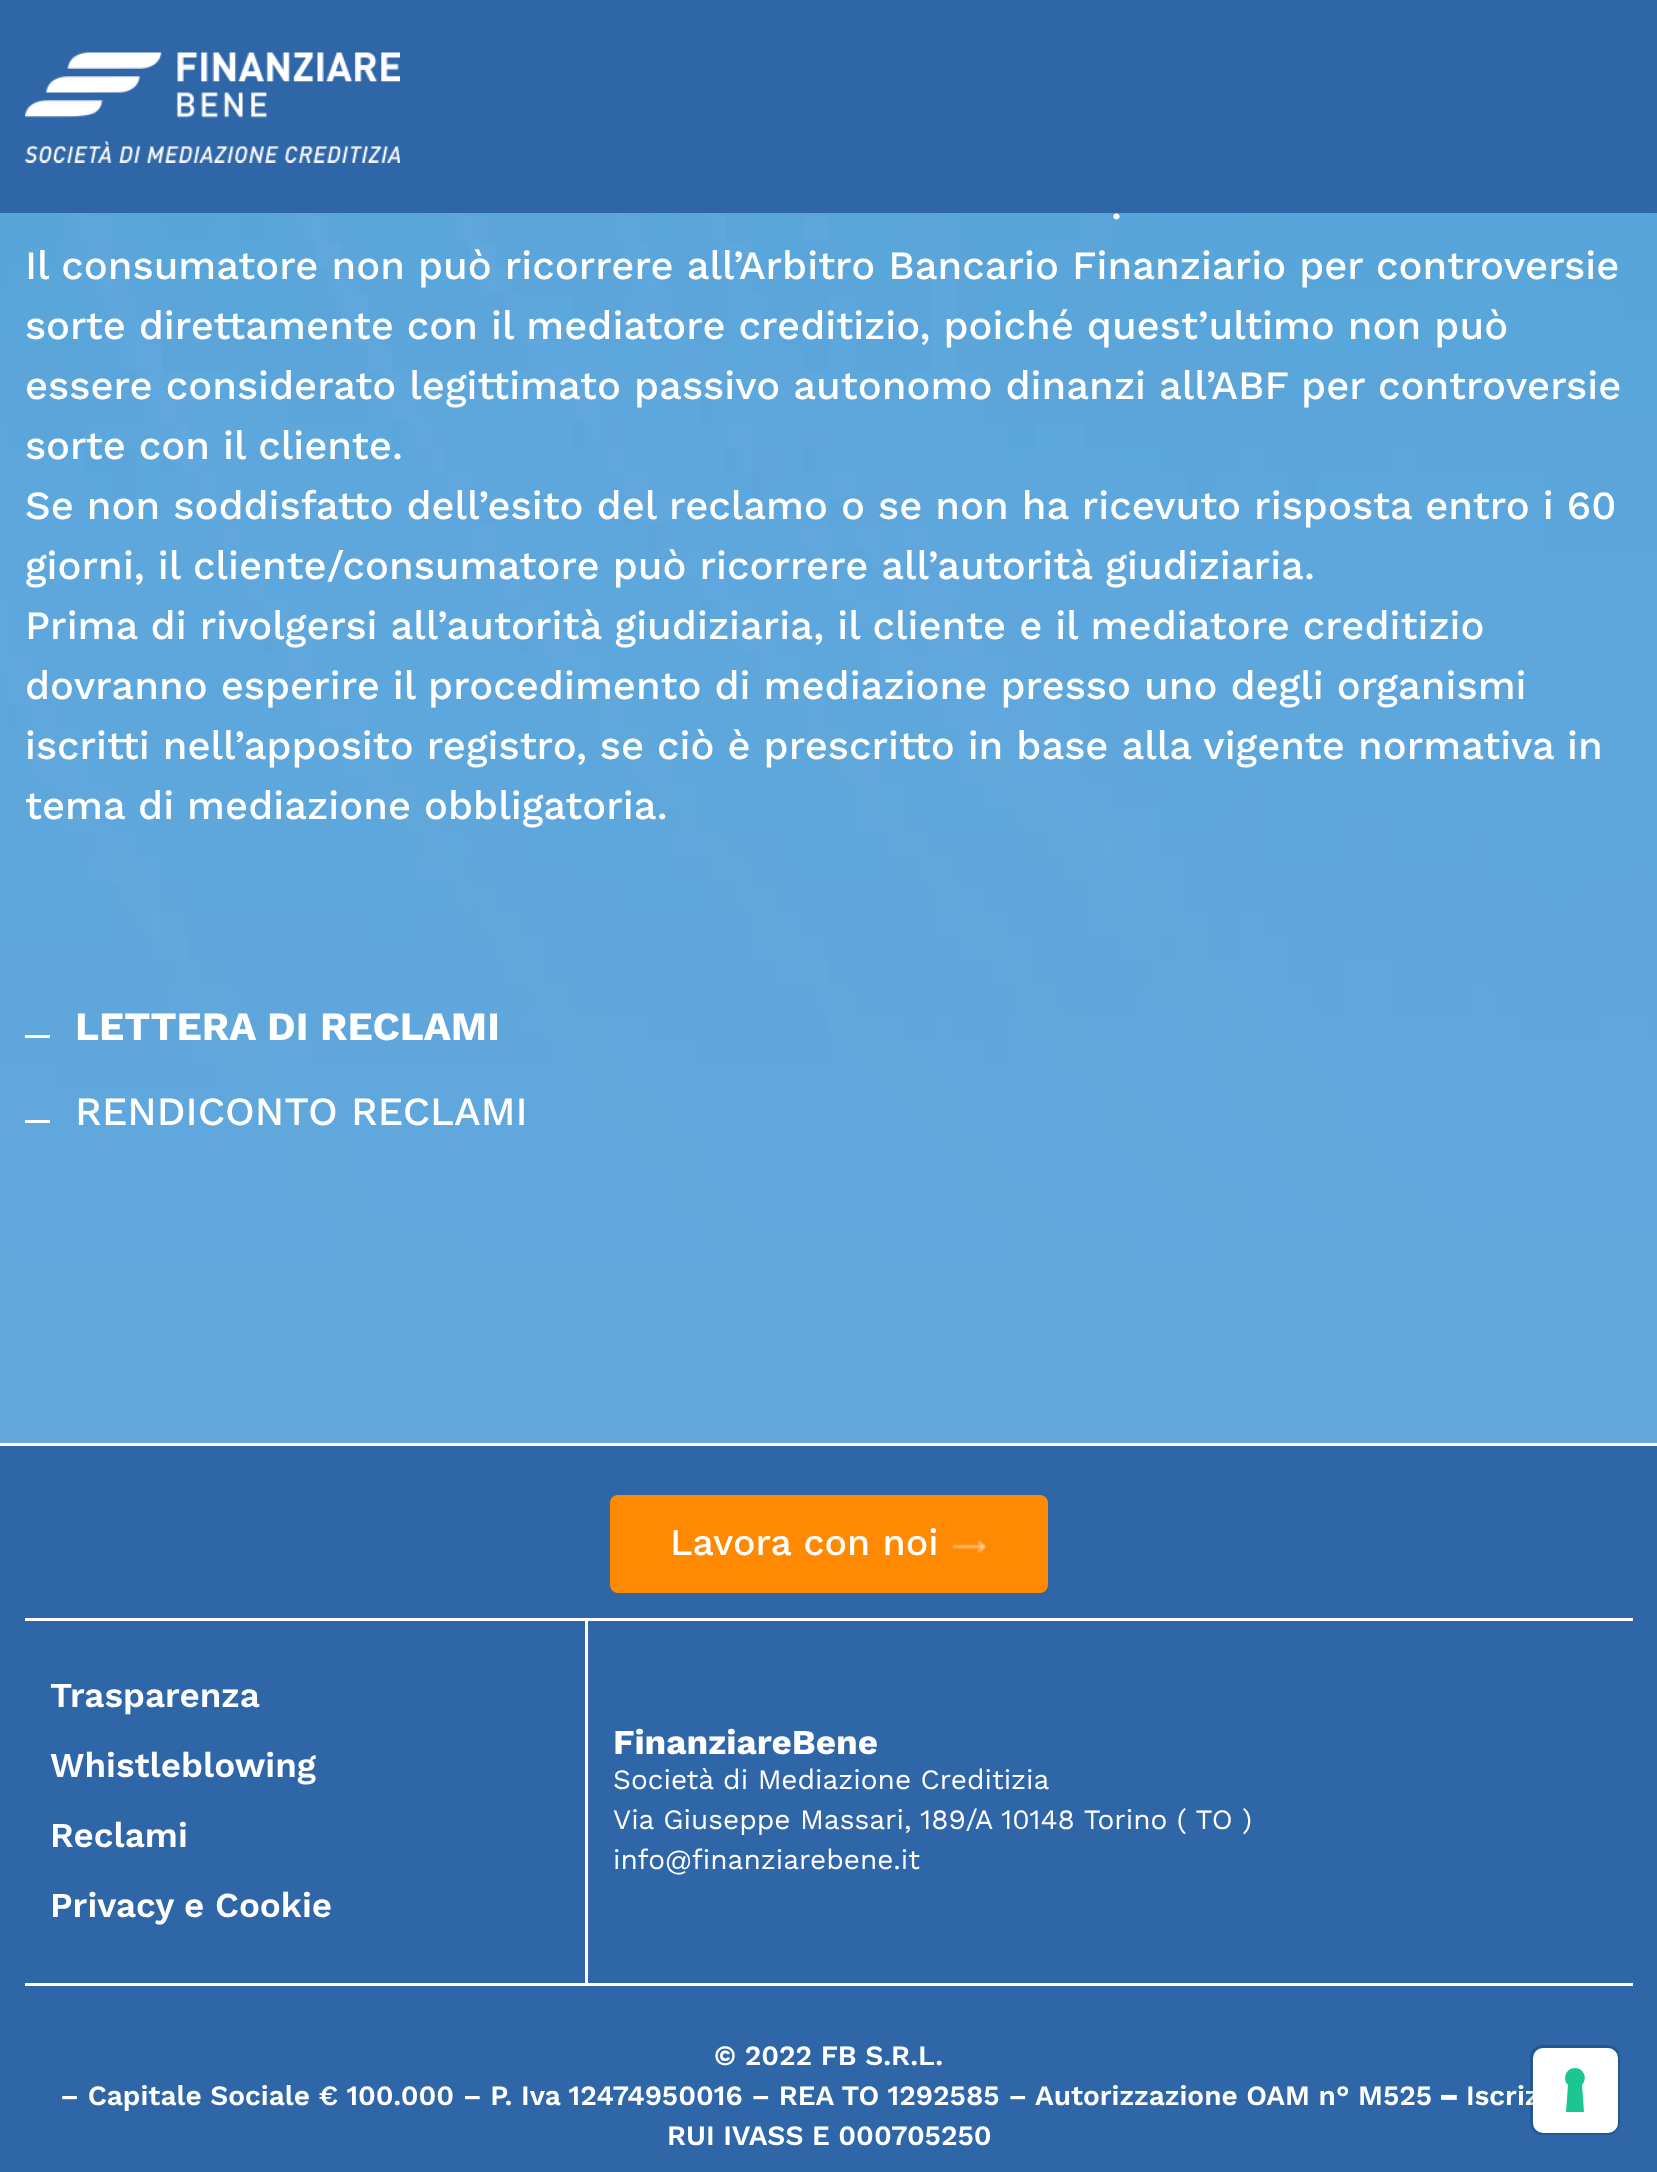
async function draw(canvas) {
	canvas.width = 1657;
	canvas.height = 2172;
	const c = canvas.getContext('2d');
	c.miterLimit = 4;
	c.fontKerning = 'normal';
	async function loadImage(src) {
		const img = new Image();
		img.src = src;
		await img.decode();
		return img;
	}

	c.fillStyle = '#fff';
	c.fillRect(0, 0, 1657, 2172);
	c.drawImage(await loadImage('img1.png'), 0, 213, 1657, 1230);
	c.fillStyle = '#2e66a8';
	c.fillRect(0, 0, 1657, 213);
	c.drawImage(await loadImage('img2.png'), 25, 52, 375, 111);
	c.font = '500 40px Work Sans';
	c.fillStyle = '#fff';
	for (const [text, x, y] of [
		['.', 1111, 219],
		['Il consumatore non può ricorrere all’Arbitro Bancario Finanziario per controversie', 25, 279],
		['sorte direttamente con il mediatore creditizio, poiché quest’ultimo non può', 25, 339],
		['essere considerato legittimato passivo autonomo dinanzi all’ABF per controversie', 25, 399],
		['sorte con il cliente.', 25, 459],
		['Se non soddisfatto dell’esito del reclamo o se non ha ricevuto risposta entro i 60', 25, 519],
		['giorni, il cliente/consumatore può ricorrere all’autorità giudiziaria.', 25, 579],
		['Prima di rivolgersi all’autorità giudiziaria, il cliente e il mediatore creditizio', 25, 639],
		['dovranno esperire il procedimento di mediazione presso uno degli organismi', 25, 699],
		['iscritti nell’apposito registro, se ciò è prescritto in base alla vigente normativa in', 25, 759],
		['tema di mediazione obbligatoria.', 25, 819],
	]) {
		c.fillText(text, x, y);
	}
	c.fillRect(25, 1035, 25, 3);
	c.font = 'bold 40px Work Sans';
	c.fillText('LETTERA DI RECLAMI', 75, 1040);
	c.fillRect(25, 1120, 25, 3);
	c.font = '500 40px Work Sans';
	c.fillText('RENDICONTO RECLAMI', 75, 1125);
	c.fillStyle = '#2e66a8';
	c.fillRect(0, 1446, 1657, 726);
	c.fillStyle = '#fff';
	c.fillRect(25, 1618, 1608, 3);
	c.fillStyle = '#ff8900';
	c.beginPath();
	c.roundRect(610, 1495, 438, 98, 8);
	c.fill();
	c.font = '500 37.5px Work Sans';
	c.fillStyle = '#fff';
	c.fillText('Lavora con noi', 670, 1555);
	c.drawImage(await loadImage('img3.png'), 951, 1540, 35, 14);
	c.fillRect(585, 1620, 3, 363);
	c.font = '600 35px Work Sans';
	for (const [text, x, y] of [
		['Trasparenza', 50, 1707],
		['Whistleblowing', 50, 1777],
		['Reclami', 50, 1847],
		['Privacy', 50, 1917],
		['e Cookie', 184, 1917],
	]) {
		c.fillText(text, x, y);
	}
	c.font = 'bold 35px Work Sans';
	c.fillText('FinanziareBene', 613, 1754);
	c.font = '28px Work Sans';
	for (const [text, x, y] of [
		['Società di Mediazione Creditizia', 613, 1789],
		['Via Giuseppe Massari, 189/A 10148 Torino ( TO )', 613, 1829],
		['info@finanziarebene.it', 613, 1869],
	]) {
		c.fillText(text, x, y);
	}
	c.fillRect(25, 1983, 1608, 3);
	c.font = '600 28px Work Sans';
	c.fillText('© 2022 FB S.R.L.', 714, 2065);
	c.fillText('– Capitale Sociale € 100.000 – P. Iva 12474950016 – REA TO 1292585 – Autorizzazione OAM n° M525', 60, 2105);
	c.font = '900 28px Work Sans';
	c.fillText('–', 1439, 2105);
	c.font = '600 28px Work Sans';
	c.fillText('Iscriz', 1466, 2105);
	c.fillText('RUI IVASS E 000705250', 667, 2145);
	c.beginPath();
	c.roundRect(1531.5, 2046.5, 87, 87, 11.5);
	c.strokeStyle = '#00000026';
	c.lineWidth = 3;
	c.stroke();
	c.beginPath();
	c.roundRect(1533, 2048, 85, 85, 10);
	c.fill();
	c.fillStyle = '#1cc691';
	c.beginPath();
	c.moveTo(1575, 2068);
	c.bezierCurveTo(1584, 2068, 1588, 2079, 1582, 2085);
	c.lineTo(1584, 2112);
	c.lineTo(1566, 2112);
	c.lineTo(1568, 2085);
	c.bezierCurveTo(1562, 2079, 1566, 2068, 1575, 2068);
	c.closePath();
	c.fill('evenodd');
}

draw(document.querySelector('canvas'));
